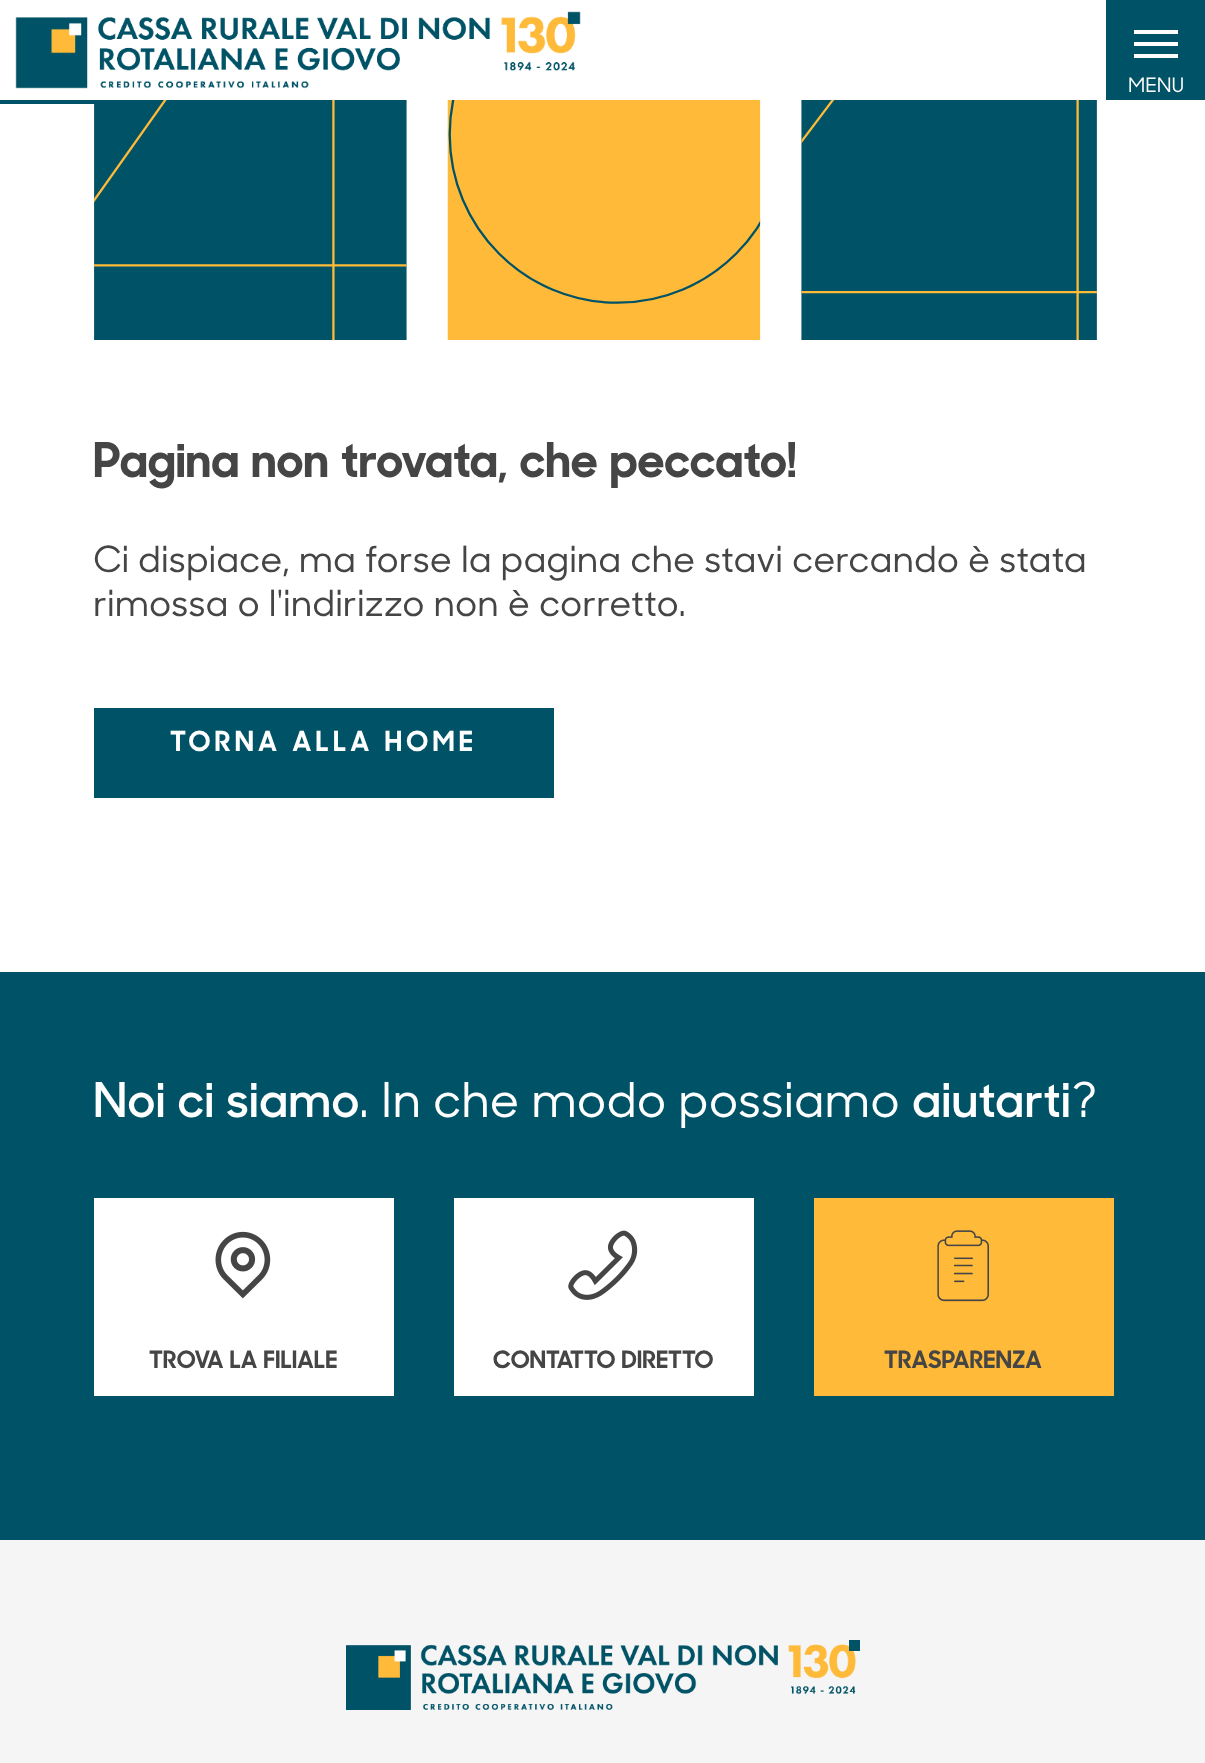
async function draw(canvas) {
	canvas.width = 1205;
	canvas.height = 1763;
	const c = canvas.getContext('2d');
	c.miterLimit = 4;
	c.fontKerning = 'normal';
	async function loadImage(src) {
		const img = new Image();
		img.src = src;
		await img.decode();
		return img;
	}

	c.fillStyle = '#fff';
	c.fillRect(0, 0, 1205, 1763);
	c.drawImage(await loadImage('img1.png'), 15, 11, 566, 78);
	for (const [x, y, w, h, color] of [
		[1106, 0, 99, 100, '#005366'],
		[1134, 30, 44, 4, '#fff'],
		[1134, 42, 44, 4, '#fff'],
		[1134, 54, 44, 4, '#fff'],
	]) {
		c.fillStyle = color;
		c.fillRect(x, y, w, h);
	}
	c.font = '500 20px "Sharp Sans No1"';
	c.fillText('MENU', 1128, 92);
	c.drawImage(await loadImage('img2.png'), 94, 100, 1003, 240);
	c.fillStyle = '#005366';
	c.fillRect(0, 100, 95, 4);
	c.font = 'bold 48px "Sharp Sans No1"';
	c.fillStyle = '#454545';
	c.fillText('Pagina non trovata, che peccato!', 93, 477);
	c.font = '500 36.15px "Sharp Sans No1"';
	c.fillText('Ci dispiace, ma forse la pagina che stavi cercando è stata', 93, 572);
	c.fillText('rimossa o l\'indirizzo non è corretto.', 93, 616);
	c.fillStyle = '#005366';
	c.fillRect(94, 708, 460, 90);
	c.letterSpacing = '4.2px';
	c.font = 'bold 27.75px "Sharp Sans No1"';
	c.fillStyle = '#fff';
	c.fillText('TORNA ALLA HOME', 170, 751);
	c.fillStyle = '#005366';
	c.fillRect(0, 972, 1205, 568);
	c.letterSpacing = '0px';
	c.font = '600 48px "Sharp Sans No1"';
	c.fillStyle = '#fff';
	c.fillText('Noi ci siamo', 93, 1117);
	c.font = '500 48px "Sharp Sans No1"';
	c.fillText('. In che modo possiamo', 359, 1117);
	c.font = '600 48px "Sharp Sans No1"';
	c.fillText('aiutarti', 912, 1117);
	c.font = '500 48px "Sharp Sans No1"';
	c.fillText('?', 1071, 1117);
	c.fillRect(94, 1198, 300, 198);
	c.drawImage(await loadImage('img3.png'), 215, 1231, 56, 68);
	c.font = 'bold 24px "Sharp Sans No1"';
	c.fillStyle = '#454545';
	c.fillText('TROVA LA FILIALE', 149, 1368);
	c.fillStyle = '#fff';
	c.fillRect(454, 1198, 300, 198);
	c.drawImage(await loadImage('img4.png'), 568, 1230, 70, 70);
	c.fillStyle = '#454545';
	c.fillText('CONTATTO DIRETTO', 493, 1368);
	c.fillStyle = '#ffba3a';
	c.fillRect(814, 1198, 300, 198);
	c.drawImage(await loadImage('img5.png'), 937, 1230, 52, 72);
	c.fillStyle = '#454545';
	c.fillText('TRASPARENZA', 884, 1368);
	c.fillStyle = '#f5f5f5';
	c.fillRect(0, 1540, 1205, 223);
	c.drawImage(await loadImage('img6.png'), 346, 1640, 514, 70);
}

draw(document.querySelector('canvas'));
